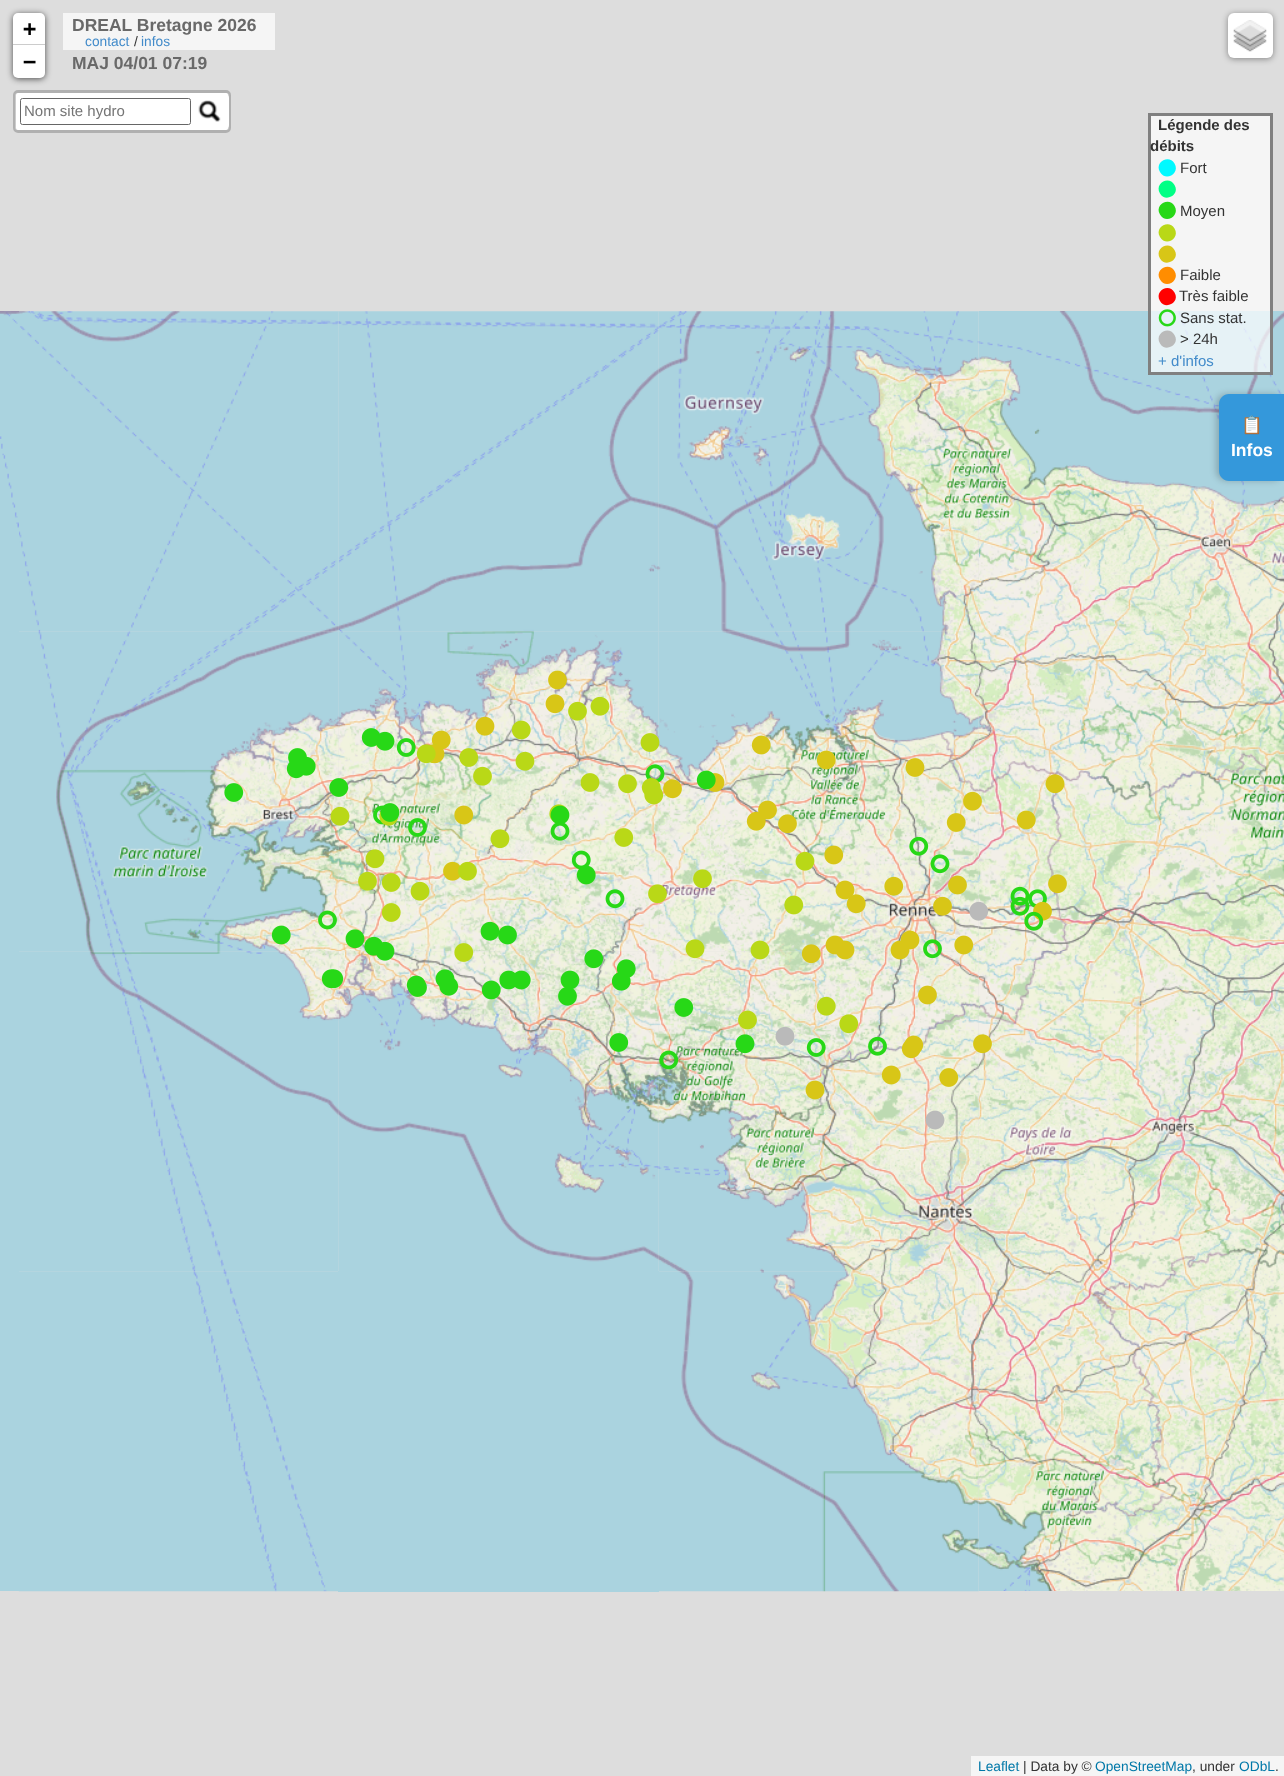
async function draw(canvas) {
	canvas.width = 1284;
	canvas.height = 1776;
	const c = canvas.getContext('2d');
	c.miterLimit = 4;
	c.fontKerning = 'normal';
	async function loadImage(src) {
		const img = new Image();
		img.src = src;
		await img.decode();
		return img;
	}

	c.fillStyle = '#ddd';
	c.fillRect(0, 0, 1284, 1776);
	c.fillStyle = '#f5f5f5';
	c.fillRect(63, 13, 212, 37);
	c.font = 'bold 17.5px Liberation Sans';
	c.fillStyle = '#696969';
	c.fillText('DREAL Bretagne 2026', 72, 31);
	c.fillStyle = '#000000a6';
	c.filter = 'blur(3px)';
	c.beginPath();
	c.roundRect(13, 14, 32, 65, 5);
	c.fill();
	c.filter = 'none';
	c.fillStyle = '#fff';
	c.beginPath();
	c.roundRect(13, 13, 32, 32, [5, 5, 0, 0]);
	c.fill();
	c.fillStyle = '#ccc';
	c.fillRect(13, 44, 32, 1);
	c.font = 'bold 22px DejaVu Sans Mono';
	c.fillStyle = '#000';
	c.fillText('+', 23, 36);
	c.fillStyle = '#fff';
	c.beginPath();
	c.roundRect(13, 45, 32, 33, [0, 0, 5, 5]);
	c.fill();
	c.fillStyle = '#000';
	c.fillText('−', 23, 69);
	c.fillStyle = '#fff';
	c.beginPath();
	c.roundRect(15, 93, 214, 37, 2.5);
	c.fill();
	c.beginPath();
	c.roundRect(14.5, 91.5, 215, 40, 3.5);
	c.strokeStyle = '#00000033';
	c.lineWidth = 3;
	c.stroke();
	c.beginPath();
	c.roundRect(20.5, 98.5, 170, 26, 2);
	c.strokeStyle = '#666';
	c.lineWidth = 1;
	c.stroke();
	c.font = '15px Liberation Sans';
	c.fillStyle = '#757575';
	c.fillText('Nom site hydro', 24, 116);
	c.fillStyle = '#fff';
	c.beginPath();
	c.roundRect(191, 93, 38, 37, 5);
	c.fill();
	c.drawImage(await loadImage('img1.png'), 198, 100, 23, 22);
	c.fillStyle = '#00000066';
	c.filter = 'blur(3px)';
	c.beginPath();
	c.roundRect(1228, 14, 45, 45, 6);
	c.fill();
	c.filter = 'none';
	c.fillStyle = '#fff';
	c.beginPath();
	c.roundRect(1228, 13, 45, 45, 6);
	c.fill();
	c.drawImage(await loadImage('img2.png'), 1233, 20, 34, 32);
	c.fillStyle = '#f5f5f5';
	c.fillRect(971, 1756, 313, 20);
	c.font = '13.75px Liberation Sans';
	c.fillStyle = '#0078a8';
	c.fillText('Leaflet', 978, 1771);
	c.fillStyle = '#333';
	c.fillText('| Data by ©', 1023, 1771);
	c.fillStyle = '#0078a8';
	c.fillText('OpenStreetMap', 1095, 1771);
	c.fillStyle = '#333';
	c.fillText(', under', 1192, 1771);
	c.fillStyle = '#0078a8';
	c.fillText('ODbL', 1239, 1771);
	c.fillStyle = '#333';
	c.fillText('.', 1275, 1771);
	c.drawImage(await loadImage('img3.png'), 0, 311, 19, 320);
	c.drawImage(await loadImage('img9.png'), 338, 631, 321, 321);
	c.drawImage(await loadImage('img10.png'), 658, 631, 321, 321);
	c.drawImage(await loadImage('img5.png'), 338, 311, 321, 321);
	c.drawImage(await loadImage('img13.png'), 338, 951, 321, 320);
	c.drawImage(await loadImage('img8.png'), 19, 631, 320, 321);
	c.drawImage(await loadImage('img4.png'), 19, 311, 320, 321);
	c.drawImage(await loadImage('img6.png'), 658, 311, 321, 321);
	c.drawImage(await loadImage('img7.png'), 979, 311, 305, 320);
	c.drawImage(await loadImage('img12.png'), 19, 951, 320, 321);
	c.drawImage(await loadImage('img16.png'), 18, 1271, 320, 321);
	c.fillStyle = '#aad3df';
	c.fillRect(0, 631, 19, 960);
	c.drawImage(await loadImage('img11.png'), 979, 631, 305, 320);
	c.drawImage(await loadImage('img14.png'), 658, 951, 321, 321);
	c.drawImage(await loadImage('img15.png'), 979, 951, 305, 320);
	c.fillRect(338, 1271, 321, 321);
	c.drawImage(await loadImage('img17.png'), 659, 1271, 320, 321);
	c.drawImage(await loadImage('img18.png'), 979, 1271, 305, 320);
	c.drawImage(await loadImage('img19.png'), 224, 670, 843, 460);
	c.fillStyle = '#428bca';
	c.fillText('contact', 85, 46);
	c.fillStyle = '#333';
	c.fillText('/', 134, 46);
	c.fillStyle = '#428bca';
	c.fillText('infos', 141, 46);
	c.font = 'bold 17.5px Liberation Sans';
	c.fillStyle = '#696969';
	c.fillText('MAJ 04/01 07:19', 72, 69);
	c.fillStyle = '#ffffffb3';
	c.beginPath();
	c.rect(1149.5, 114.5, 122, 259);
	c.fill();
	c.strokeStyle = '#808080';
	c.lineWidth = 3;
	c.stroke();
	c.font = 'bold 15px Liberation Sans';
	c.fillStyle = '#333';
	c.fillText('Légende des', 1158, 130);
	c.fillText('débits', 1150, 151);
	c.fillStyle = '#00f9ff';
	c.beginPath();
	c.moveTo(1174.5, 163.5);
	c.bezierCurveTo(1180.5, 173.5, 1165.5, 182, 1160, 172);
	c.bezierCurveTo(1154, 162.5, 1169, 154, 1174.5, 163.5);
	c.closePath();
	c.fill();
	c.font = '15px Liberation Sans';
	c.fillStyle = '#333';
	c.fillText('Fort', 1180, 173);
	c.fillStyle = '#00ff85';
	c.beginPath();
	c.moveTo(1174.5, 185);
	c.bezierCurveTo(1180.5, 194.5, 1165.5, 203, 1160, 193.5);
	c.bezierCurveTo(1154, 183.5, 1169, 175, 1174.5, 185);
	c.closePath();
	c.fill();
	c.fillStyle = '#27d817';
	c.beginPath();
	c.moveTo(1174.5, 206);
	c.bezierCurveTo(1180.5, 216, 1165.5, 224.5, 1160, 214.5);
	c.bezierCurveTo(1154, 205, 1169, 196.5, 1174.5, 206);
	c.closePath();
	c.fill();
	c.fillStyle = '#333';
	c.fillText('Moyen', 1180, 216);
	c.fillStyle = '#b9d817';
	c.beginPath();
	c.moveTo(1174.5, 228.5);
	c.bezierCurveTo(1180.5, 238.5, 1165.5, 247, 1160, 237);
	c.bezierCurveTo(1154, 227.5, 1169, 219, 1174.5, 228.5);
	c.closePath();
	c.fill();
	c.fillStyle = '#d8c617';
	c.beginPath();
	c.moveTo(1174.5, 250);
	c.bezierCurveTo(1180.5, 259.5, 1165.5, 268, 1160, 258.5);
	c.bezierCurveTo(1154, 248.5, 1169, 240, 1174.5, 250);
	c.closePath();
	c.fill();
	c.fillStyle = '#ff8d00';
	c.beginPath();
	c.moveTo(1174.5, 271);
	c.bezierCurveTo(1180.5, 281, 1165.5, 289.5, 1160, 279.5);
	c.bezierCurveTo(1154, 270, 1169, 261.5, 1174.5, 271);
	c.closePath();
	c.fill();
	c.fillStyle = '#333';
	c.fillText('Faible', 1180, 280);
	c.fillStyle = '#f00';
	c.beginPath();
	c.moveTo(1174.5, 292.5);
	c.bezierCurveTo(1180.5, 302, 1165.5, 310.5, 1160, 301);
	c.bezierCurveTo(1154, 291, 1169, 282.5, 1174.5, 292.5);
	c.closePath();
	c.fill();
	c.fillStyle = '#333';
	c.fillText('Très faible', 1179, 301);
	c.drawImage(await loadImage('img20.png'), 1158, 309, 18, 18);
	c.fillText('Sans stat.', 1180, 323);
	c.fillStyle = '#bababa';
	c.beginPath();
	c.moveTo(1174.5, 335);
	c.bezierCurveTo(1180.5, 344.5, 1165.5, 353, 1160, 343.5);
	c.bezierCurveTo(1154, 333.5, 1169, 325, 1174.5, 335);
	c.closePath();
	c.fill();
	c.fillStyle = '#333';
	c.fillText('> 24h', 1180, 344);
	c.fillStyle = '#428bca';
	c.fillText('+ d\'infos', 1158, 366);
	c.fillStyle = '#00000033';
	c.filter = 'blur(3px)';
	c.beginPath();
	c.roundRect(1216, 394, 67, 87, 10);
	c.fill();
	c.filter = 'none';
	c.fillStyle = '#3498db';
	c.beginPath();
	c.moveTo(1229, 394);
	c.lineTo(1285, 394);
	c.lineTo(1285, 481);
	c.lineTo(1229, 481);
	c.bezierCurveTo(1223.5, 481, 1219, 476.5, 1219, 471);
	c.lineTo(1219, 404);
	c.bezierCurveTo(1219, 398.5, 1223.5, 394, 1229, 394);
	c.closePath();
	c.fill();
	c.font = 'bold 17.5px Noto Color Emoji';
	c.fillStyle = '#fff';
	c.fillText('📋', 1241, 431);
	c.font = 'bold 17.5px Liberation Sans';
	c.fillText('Infos', 1231, 456);
}

draw(document.querySelector('canvas'));
